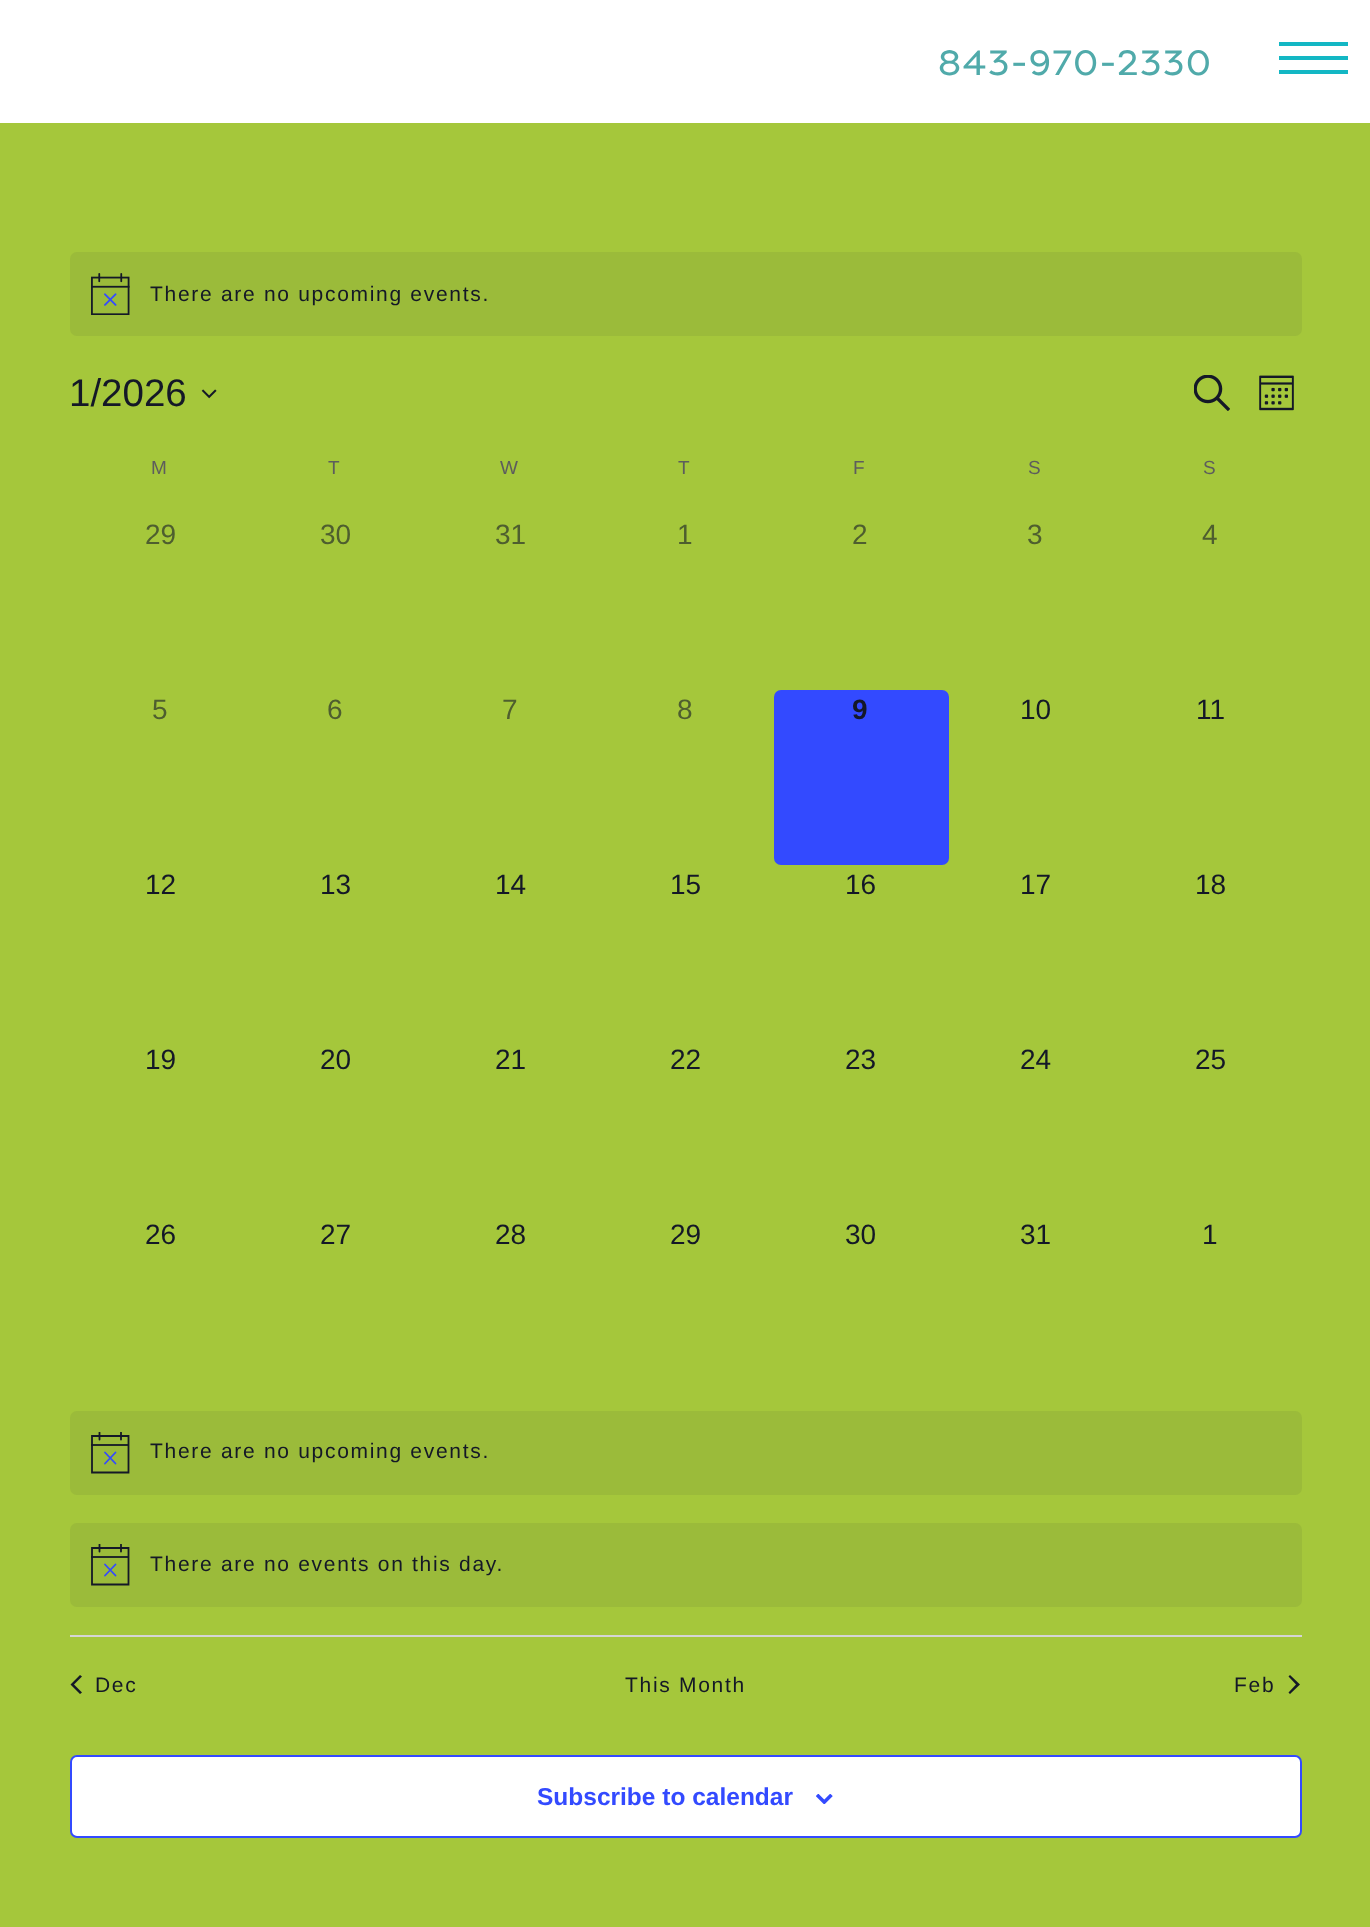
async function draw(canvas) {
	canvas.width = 1370;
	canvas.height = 1927;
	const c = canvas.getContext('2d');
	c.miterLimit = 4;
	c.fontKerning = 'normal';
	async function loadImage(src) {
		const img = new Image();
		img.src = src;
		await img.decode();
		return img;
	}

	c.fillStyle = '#a5c73b';
	c.fillRect(0, 0, 1370, 1927);
	c.fillStyle = '#fff';
	c.fillRect(0, 0, 1370, 123);
	c.letterSpacing = '1.7px';
	c.font = '35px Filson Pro';
	c.fillStyle = '#50aaaa';
	c.fillText('843-970-2330', 938, 75);
	for (const [x, y, w, h, color] of [
		[1279, 56, 69, 4, '#13b7c4'],
		[1279, 42, 69, 4, '#13b7c4'],
		[1279, 70, 69, 4, '#13b7c4'],
	]) {
		c.fillStyle = color;
		c.fillRect(x, y, w, h);
	}
	c.fillStyle = '#9bbb3a';
	c.beginPath();
	c.roundRect(70, 252, 1232, 84, 7);
	c.fill();
	c.drawImage(await loadImage('img1.png'), 91, 273, 39, 42);
	c.font = '21px Liberation Sans';
	c.fillStyle = '#141827';
	c.fillText('There are no upcoming events.', 150, 301);
	c.letterSpacing = '0px';
	c.font = '38.5px Liberation Sans';
	c.fillText('1/2026', 69, 406);
	c.drawImage(await loadImage('img2.png'), 201, 389, 16, 10);
	c.drawImage(await loadImage('img3.png'), 1194, 375, 36, 36);
	c.drawImage(await loadImage('img4.png'), 1259, 375, 35, 36);
	c.letterSpacing = '1.7px';
	c.font = '19px Liberation Sans';
	c.fillStyle = '#5d5d5d';
	for (const [text, x, y] of [
		['M', 151, 474],
		['T', 328, 474],
		['W', 500, 474],
		['T', 678, 474],
		['F', 853, 474],
		['S', 1028, 474],
		['S', 1203, 474],
	]) {
		c.fillText(text, x, y);
	}
	c.letterSpacing = '0px';
	c.font = '28px Liberation Sans';
	c.fillStyle = '#4e5e2f';
	for (const [text, x, y] of [
		['29', 145, 544],
		['30', 320, 544],
		['31', 495, 544],
		['1', 677, 544],
		['2', 852, 544],
		['3', 1027, 544],
		['4', 1202, 544],
		['5', 152, 719],
		['6', 327, 719],
		['7', 502, 719],
		['8', 677, 719],
	]) {
		c.fillText(text, x, y);
	}
	c.fillStyle = '#334aff';
	c.beginPath();
	c.roundRect(774, 690, 175, 175, 7);
	c.fill();
	c.font = 'bold 28px Liberation Sans';
	c.fillStyle = '#141827';
	c.fillText('9', 852, 719);
	c.font = '28px Liberation Sans';
	for (const [text, x, y] of [
		['10', 1020, 719],
		['11', 1196, 719],
		['12', 145, 894],
		['13', 320, 894],
		['14', 495, 894],
		['15', 670, 894],
		['16', 845, 894],
		['17', 1020, 894],
		['18', 1195, 894],
		['19', 145, 1069],
		['20', 320, 1069],
		['21', 495, 1069],
		['22', 670, 1069],
		['23', 845, 1069],
		['24', 1020, 1069],
		['25', 1195, 1069],
		['26', 145, 1244],
		['27', 320, 1244],
		['28', 495, 1244],
		['29', 670, 1244],
		['30', 845, 1244],
		['31', 1020, 1244],
		['1', 1202, 1244],
	]) {
		c.fillText(text, x, y);
	}
	c.fillStyle = '#9bbb3a';
	c.beginPath();
	c.roundRect(70, 1411, 1232, 84, 7);
	c.fill();
	c.beginPath();
	c.moveTo(92, 1436);
	c.lineTo(128.5, 1436);
	c.lineTo(128.5, 1472.5);
	c.lineTo(92, 1472.5);
	c.closePath();
	c.strokeStyle = '#141827';
	c.lineWidth = 1.8;
	c.stroke();
	c.beginPath();
	c.moveTo(105, 1452.5);
	c.lineTo(115.5, 1463.5);
	c.moveTo(115.5, 1452.5);
	c.lineTo(105, 1463.5);
	c.strokeStyle = '#334aff';
	c.lineCap = 'round';
	c.stroke();
	c.save();
	c.beginPath();
	c.rect(91, 1432, 39, 42);
	c.clip();
	c.beginPath();
	c.moveTo(99.5, 1432.5);
	c.lineTo(99.5, 1439.5);
	c.moveTo(121, 1432.5);
	c.lineTo(121, 1439.5);
	c.strokeStyle = '#141827';
	c.stroke();
	c.restore();
	c.fillStyle = '#141827e6';
	c.fillRect(91, 1444, 38, 2);
	c.letterSpacing = '1.7px';
	c.font = '21px Liberation Sans';
	c.fillStyle = '#141827';
	c.fillText('There are no upcoming events.', 150, 1458);
	c.fillStyle = '#9bbb3a';
	c.beginPath();
	c.roundRect(70, 1523, 1232, 84, 7);
	c.fill();
	c.beginPath();
	c.moveTo(92, 1548);
	c.lineTo(128.5, 1548);
	c.lineTo(128.5, 1584.5);
	c.lineTo(92, 1584.5);
	c.closePath();
	c.strokeStyle = '#141827';
	c.lineCap = 'butt';
	c.stroke();
	c.beginPath();
	c.moveTo(105, 1564.5);
	c.lineTo(115.5, 1575.5);
	c.moveTo(115.5, 1564.5);
	c.lineTo(105, 1575.5);
	c.strokeStyle = '#334aff';
	c.lineCap = 'round';
	c.stroke();
	c.save();
	c.beginPath();
	c.rect(91, 1544, 39, 42);
	c.clip();
	c.beginPath();
	c.moveTo(99.5, 1544.5);
	c.lineTo(99.5, 1551.5);
	c.moveTo(121, 1544.5);
	c.lineTo(121, 1551.5);
	c.strokeStyle = '#141827';
	c.stroke();
	c.restore();
	c.fillStyle = '#141827e6';
	c.fillRect(91, 1556, 38, 2);
	c.fillStyle = '#141827';
	c.fillText('There are no events on this day.', 150, 1571);
	c.fillStyle = '#d5d5d5';
	c.fillRect(70, 1635, 1232, 2);
	c.fillStyle = '#141827';
	c.beginPath();
	c.moveTo(82, 1692.5);
	c.lineTo(80, 1694);
	c.lineTo(70.5, 1684.5);
	c.lineTo(80, 1675);
	c.lineTo(82, 1676.5);
	c.lineTo(74, 1684.5);
	c.closePath();
	c.fill();
	for (const [text, x, y] of [
		['Dec', 95, 1692],
		['This Month', 625, 1692],
		['Feb', 1234, 1692],
	]) {
		c.fillText(text, x, y);
	}
	c.beginPath();
	c.moveTo(1288.5, 1676.5);
	c.lineTo(1290, 1675);
	c.lineTo(1300, 1684.5);
	c.lineTo(1290, 1694);
	c.lineTo(1288.5, 1692.5);
	c.lineTo(1296, 1684.5);
	c.closePath();
	c.fill();
	c.fillStyle = '#fff';
	c.beginPath();
	c.roundRect(71, 1756, 1230, 81, 6);
	c.fill();
	c.lineWidth = 2;
	c.stroke();
	c.letterSpacing = '0px';
	c.font = 'bold 24.5px Liberation Sans';
	c.fillStyle = '#334aff';
	c.fillText('Subscribe to calendar', 537, 1805);
	c.drawImage(await loadImage('img5.png'), 816, 1794, 17, 10);
}

draw(document.querySelector('canvas'));
